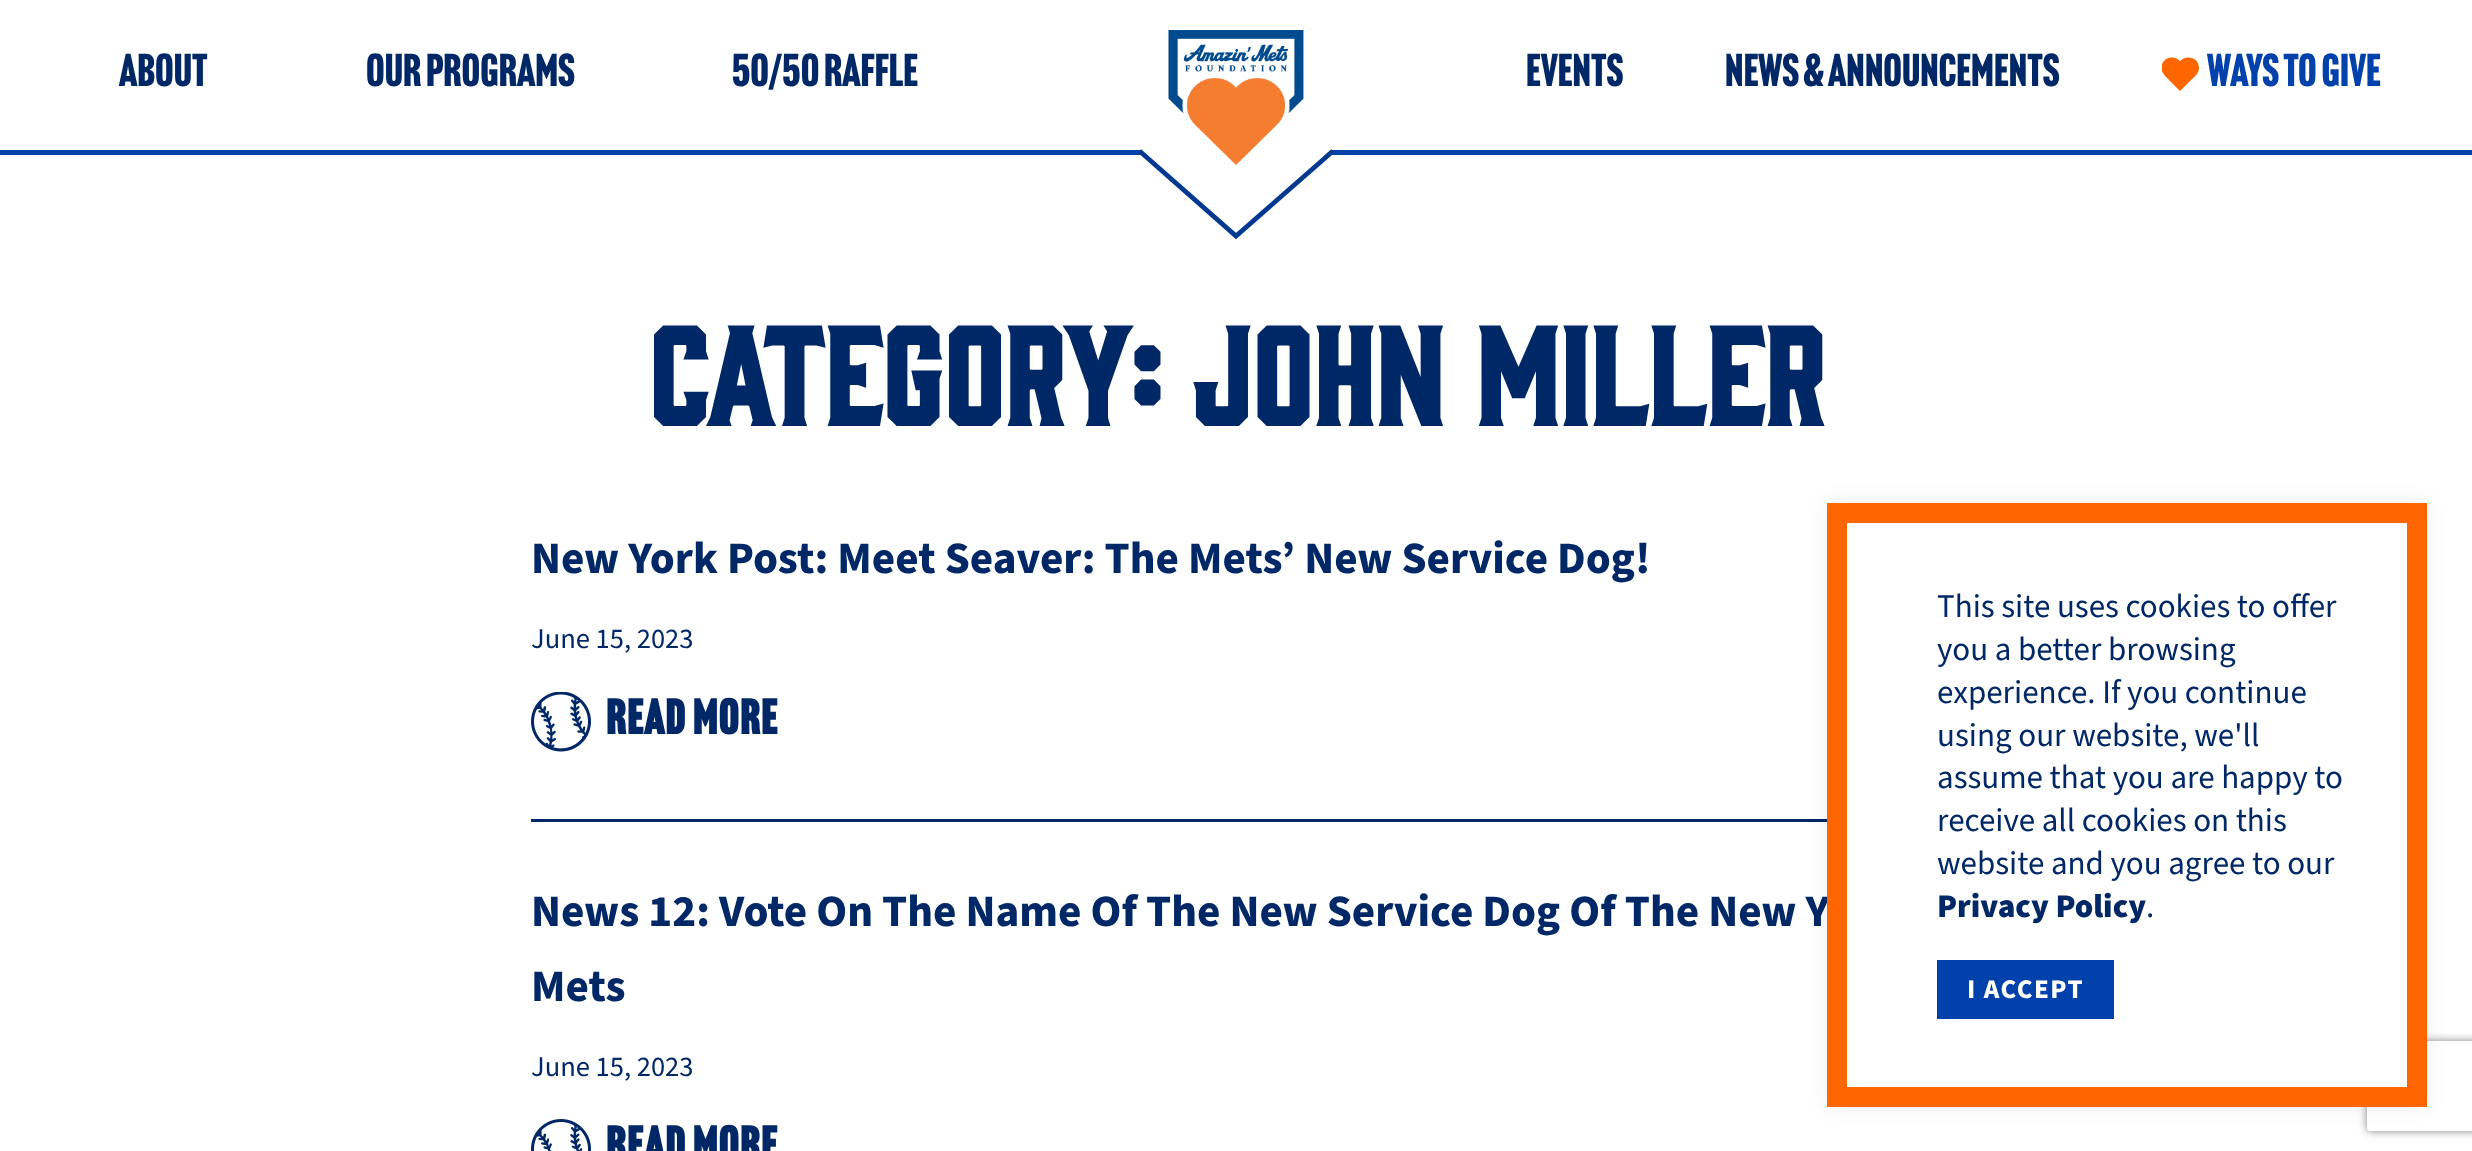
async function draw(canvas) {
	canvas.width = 2472;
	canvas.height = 1151;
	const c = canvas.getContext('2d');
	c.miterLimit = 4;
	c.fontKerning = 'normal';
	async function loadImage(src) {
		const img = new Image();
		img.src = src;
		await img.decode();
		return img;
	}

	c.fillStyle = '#fff';
	c.fillRect(0, 0, 2472, 1151);
	c.fillStyle = '#0041ac';
	c.fillRect(0, 150, 2472, 5);
	c.font = '45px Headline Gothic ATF';
	c.fillStyle = '#002766';
	for (const [text, x, y] of [
		['ABOUT', 119, 86],
		['OUR PROGRAMS', 366, 86],
		['50/50 RAFFLE', 732, 86],
	]) {
		c.fillText(text, x, y);
	}
	c.fillStyle = '#fff';
	c.beginPath();
	c.moveTo(1131, 141);
	c.lineTo(1236, 234);
	c.lineTo(1341, 141);
	c.fill();
	c.beginPath();
	c.moveTo(1139.5, 151);
	c.lineTo(1236, 236);
	c.lineTo(1333, 151);
	c.strokeStyle = '#00398f';
	c.lineWidth = 4.7;
	c.stroke();
	c.drawImage(await loadImage('img1.png'), 1168, 30, 136, 135);
	c.fillStyle = '#002766';
	c.fillText('EVENTS', 1526, 86);
	c.fillText('NEWS & ANNOUNCEMENTS', 1725, 86);
	c.save();
	c.beginPath();
	c.rect(2162, 57, 37, 34);
	c.clip();
	c.fillStyle = '#f60';
	c.beginPath();
	c.moveTo(2199, 67.5);
	c.bezierCurveTo(2198.5, 57.5, 2187, 54.5, 2180, 61);
	c.bezierCurveTo(2171.5, 52.5, 2157.5, 61, 2162.5, 72);
	c.bezierCurveTo(2163.5, 75, 2166.5, 77, 2168.5, 79.5);
	c.lineTo(2180, 91);
	c.lineTo(2190.5, 80.5);
	c.bezierCurveTo(2194.5, 77, 2199, 73.5, 2199, 67.5);
	c.fill();
	c.restore();
	c.fillStyle = '#0041ac';
	c.fillText('WAYS TO GIVE', 2207, 86);
	c.font = 'bold 127.5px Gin';
	c.fillStyle = '#002766';
	c.fillText('CATEGORY: JOHN MILLER', 648, 426);
	c.fillRect(531, 819, 1296, 3);
	c.font = 'bold 45px Source Sans Pro';
	c.fillText('New York Post: Meet Seaver: The Mets’ New Service Dog!', 531, 573);
	c.font = '28.5px Source Sans Pro';
	c.fillText('June 15, 2023', 531, 648);
	c.drawImage(await loadImage('img2.png'), 531, 692, 60, 60);
	c.letterSpacing = '1.5px';
	c.font = 'bold 48px Headline Gothic ATF';
	c.fillText('Read More', 606, 734);
	c.letterSpacing = '0px';
	c.font = 'bold 45px Source Sans Pro';
	c.fillText('News 12: Vote On The Name Of The New Service Dog Of The New Y', 531, 926);
	c.fillText('Mets', 531, 1001);
	c.font = '28.5px Source Sans Pro';
	c.fillText('June 15, 2023', 531, 1076);
	c.drawImage(await loadImage('img3.png'), 531, 1119, 60, 32);
	c.letterSpacing = '1.5px';
	c.font = 'bold 48px Headline Gothic ATF';
	c.fillText('Read More', 606, 1161);
	c.fillStyle = '#00000012';
	c.filter = 'blur(10.5px)';
	c.beginPath();
	c.rect(1827, 503, 600, 604);
	c.fill();
	c.filter = 'none';
	c.save();
	c.beginPath();
	c.moveTo(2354, 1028);
	c.lineTo(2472, 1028);
	c.lineTo(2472, 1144);
	c.lineTo(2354, 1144);
	c.closePath();
	c.moveTo(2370, 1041);
	c.lineTo(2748, 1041);
	c.bezierCurveTo(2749.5, 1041, 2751, 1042.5, 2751, 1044);
	c.lineTo(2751, 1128);
	c.bezierCurveTo(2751, 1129.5, 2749.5, 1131, 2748, 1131);
	c.lineTo(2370, 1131);
	c.bezierCurveTo(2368.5, 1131, 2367, 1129.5, 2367, 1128);
	c.lineTo(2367, 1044);
	c.bezierCurveTo(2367, 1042.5, 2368.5, 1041, 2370, 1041);
	c.closePath();
	c.clip('evenodd');
	c.fillStyle = '#808080';
	c.filter = 'blur(4px)';
	c.beginPath();
	c.roundRect(2367, 1041, 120, 90, 3);
	c.fill();
	c.filter = 'none';
	c.restore();
	c.fillStyle = '#fff';
	c.beginPath();
	c.rect(1837, 513, 580, 584);
	c.fill();
	c.strokeStyle = '#f60';
	c.lineWidth = 20;
	c.stroke();
	c.letterSpacing = '0px';
	c.font = '33px Source Sans Pro';
	c.fillStyle = '#002766';
	for (const [text, x, y] of [
		['This site uses cookies to offer', 1937, 617],
		['you a better browsing', 1937, 660],
		['experience. If you continue', 1937, 703],
		['using our website, we\'ll', 1937, 746],
		['assume that you are happy to', 1937, 788],
		['receive all cookies on this', 1937, 831],
		['website and you agree to our', 1937, 874],
	]) {
		c.fillText(text, x, y);
	}
	c.font = '900 33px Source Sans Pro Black';
	c.fillText('Privacy Policy', 1937, 917);
	c.font = '33px Source Sans Pro';
	c.fillText('.', 2146, 917);
	c.fillStyle = '#0041ac';
	c.fillRect(1937, 960, 177, 59);
	c.letterSpacing = '1.5px';
	c.font = 'bold 27px Source Sans Pro';
	c.fillStyle = '#fff';
	c.fillText('I ACCEPT', 1967, 998);
}

draw(document.querySelector('canvas'));
